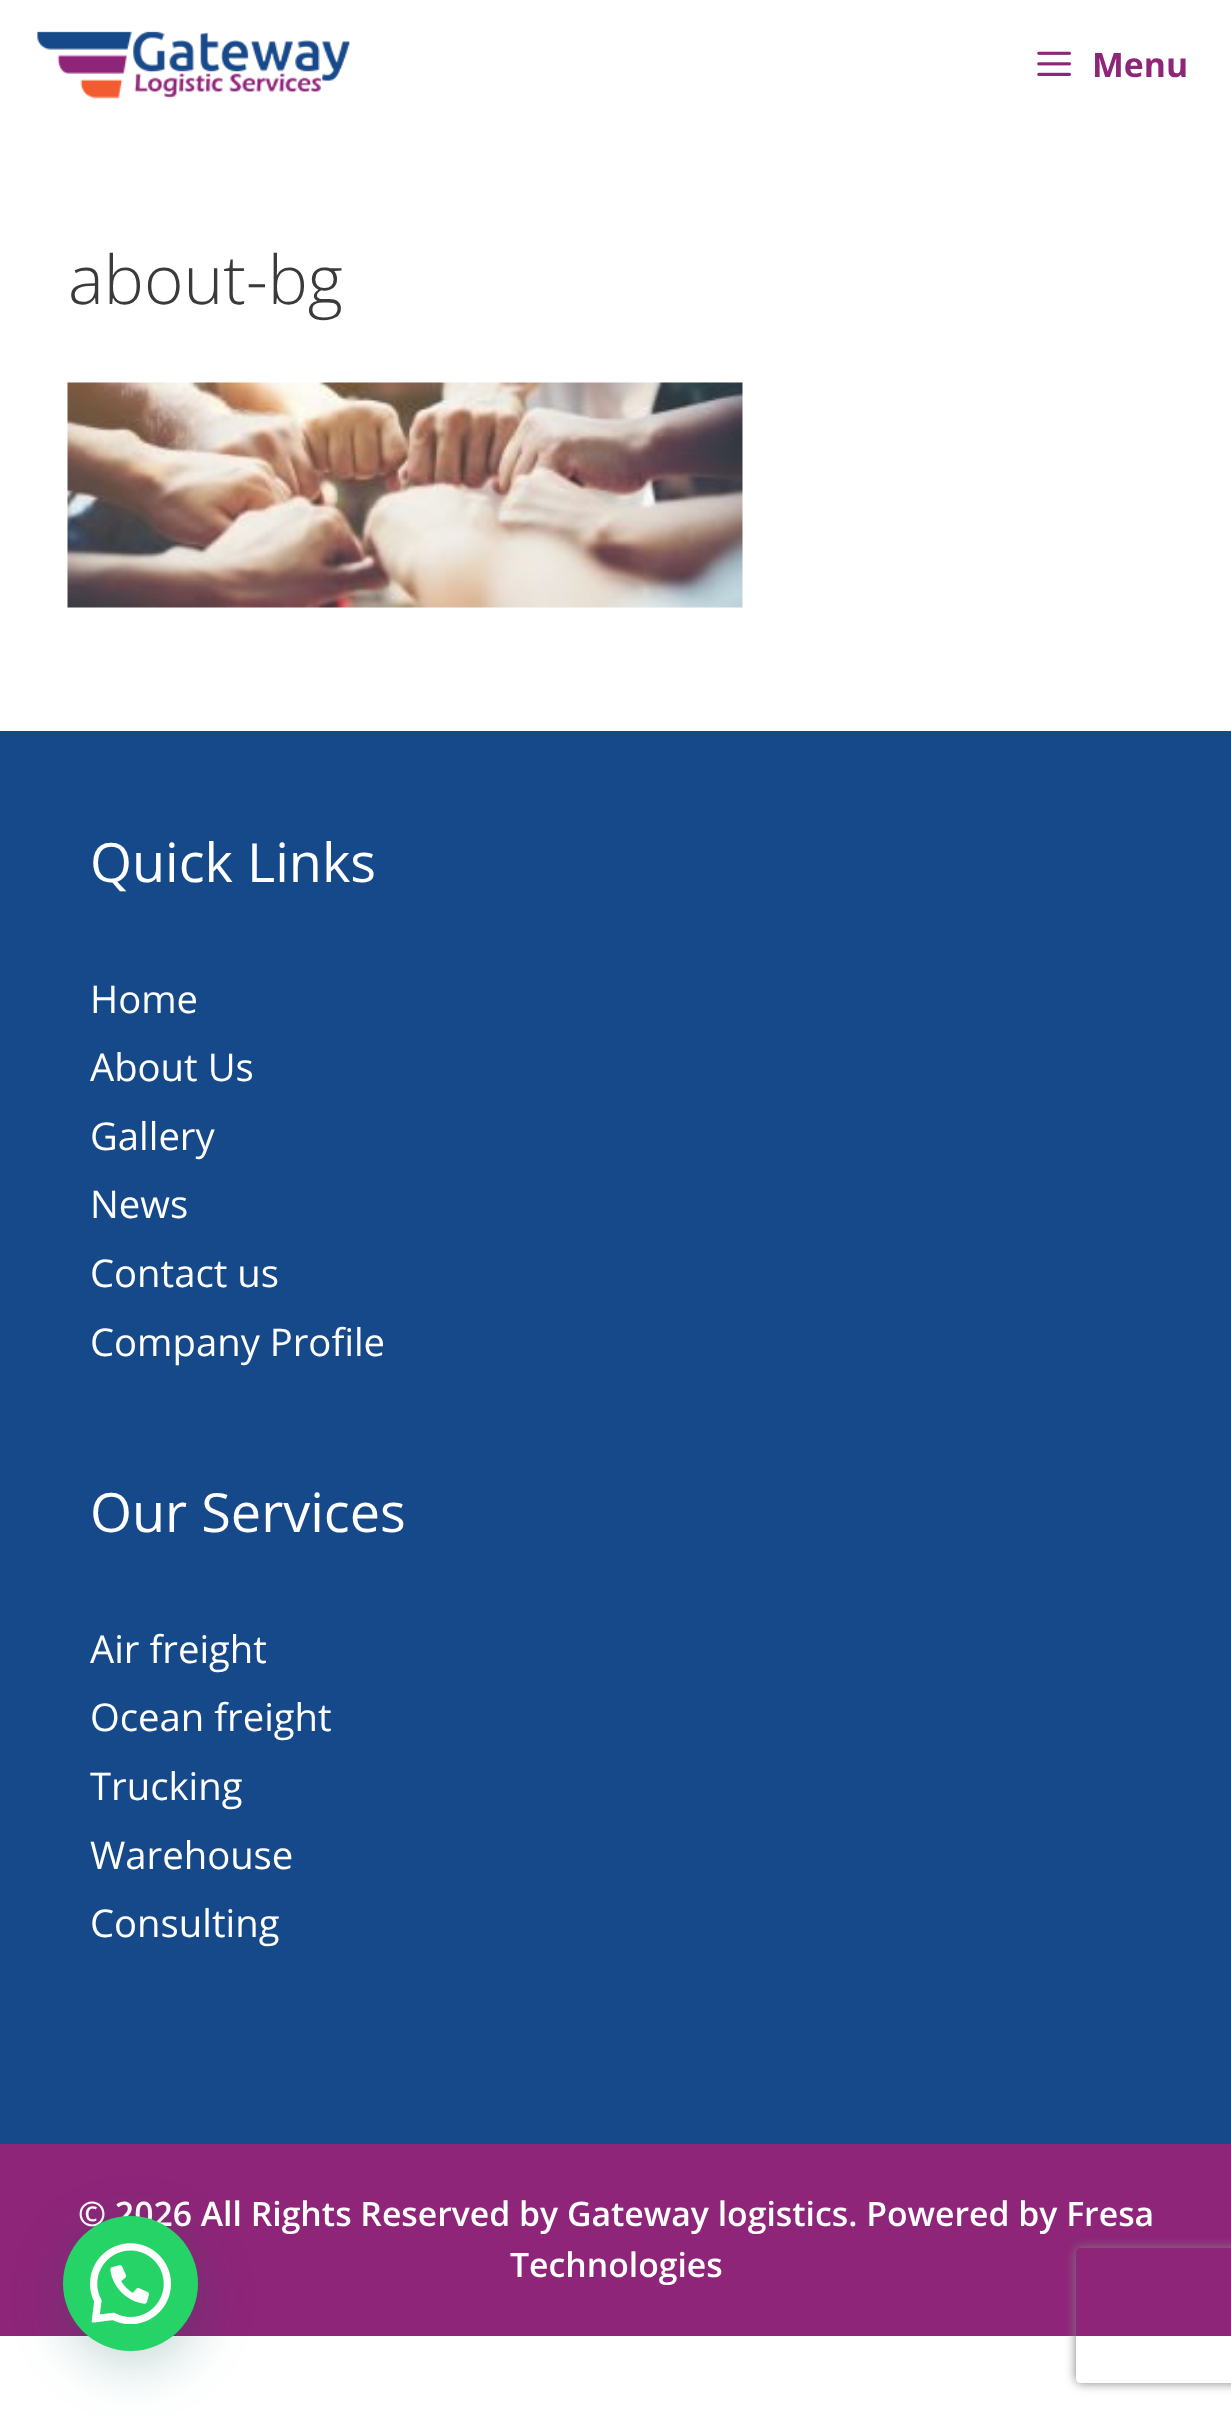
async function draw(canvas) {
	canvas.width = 1231;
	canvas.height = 2414;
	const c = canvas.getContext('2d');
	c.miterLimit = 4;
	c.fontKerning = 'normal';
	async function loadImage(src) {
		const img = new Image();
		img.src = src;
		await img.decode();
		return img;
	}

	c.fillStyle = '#fff';
	c.fillRect(0, 0, 1231, 2414);
	c.drawImage(await loadImage('img1.png'), 37, 31, 313, 68);
	c.drawImage(await loadImage('img2.png'), 1037, 51, 34, 25);
	c.font = 'bold 33.75px Open Sans';
	c.fillStyle = '#8e2579';
	c.fillText('Menu', 1092, 77);
	c.font = '300 67.5px Open Sans';
	c.fillStyle = '#3a3a3a';
	c.fillText('about-bg', 68, 304);
	c.drawImage(await loadImage('img3.png'), 67, 382, 676, 226);
	c.fillStyle = '#16498a';
	c.fillRect(0, 731, 1231, 1413);
	c.font = '54px Open Sans';
	c.fillStyle = '#fff';
	c.fillText('Quick Links', 90, 882);
	c.font = '38.25px Open Sans';
	for (const [text, x, y] of [
		['Home', 90, 1013],
		['About Us', 90, 1081],
		['Gallery', 90, 1150],
		['News', 90, 1218],
		['Contact us', 90, 1287],
		['Company Profile', 90, 1356],
	]) {
		c.fillText(text, x, y);
	}
	c.font = '54px Open Sans';
	c.fillText('Our Services', 90, 1532);
	c.font = '38.25px Open Sans';
	for (const [text, x, y] of [
		['Air freight', 90, 1663],
		['Ocean freight', 90, 1731],
		['Trucking', 90, 1800],
		['Warehouse', 90, 1869],
		['Consulting', 90, 1937],
	]) {
		c.fillText(text, x, y);
	}
	c.fillStyle = '#8e2579';
	c.fillRect(0, 2144, 1231, 192);
	c.font = '600 33.75px Open Sans';
	c.fillStyle = '#fff';
	c.fillText('© 2026 All Rights Reserved by Gateway logistics. Powered by Fresa', 78, 2226);
	c.fillText('Technologies', 510, 2277);
	c.fillStyle = '#075e543d';
	c.filter = 'blur(27px)';
	c.beginPath();
	c.roundRect(65, 2230, 135, 135, 67.5);
	c.fill();
	c.filter = 'none';
	c.fillStyle = '#25d366';
	c.beginPath();
	c.arc(130.5, 2283.5, 67.5, 0, 2 * Math.PI);
	c.fill();
	c.drawImage(await loadImage('img4.png'), 90, 2243, 81, 81);
	c.save();
	c.beginPath();
	c.moveTo(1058, 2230);
	c.lineTo(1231, 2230);
	c.lineTo(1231, 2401);
	c.lineTo(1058, 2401);
	c.closePath();
	c.moveTo(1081, 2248);
	c.lineTo(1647, 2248);
	c.bezierCurveTo(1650, 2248, 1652, 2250, 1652, 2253);
	c.lineTo(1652, 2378);
	c.bezierCurveTo(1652, 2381, 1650, 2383, 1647, 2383);
	c.lineTo(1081, 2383);
	c.bezierCurveTo(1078, 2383, 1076, 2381, 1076, 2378);
	c.lineTo(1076, 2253);
	c.bezierCurveTo(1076, 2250, 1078, 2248, 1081, 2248);
	c.closePath();
	c.clip('evenodd');
	c.fillStyle = '#808080';
	c.filter = 'blur(5.5px)';
	c.beginPath();
	c.roundRect(1076, 2248, 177, 135, 5);
	c.fill();
	c.filter = 'none';
	c.restore();
}

draw(document.querySelector('canvas'));
